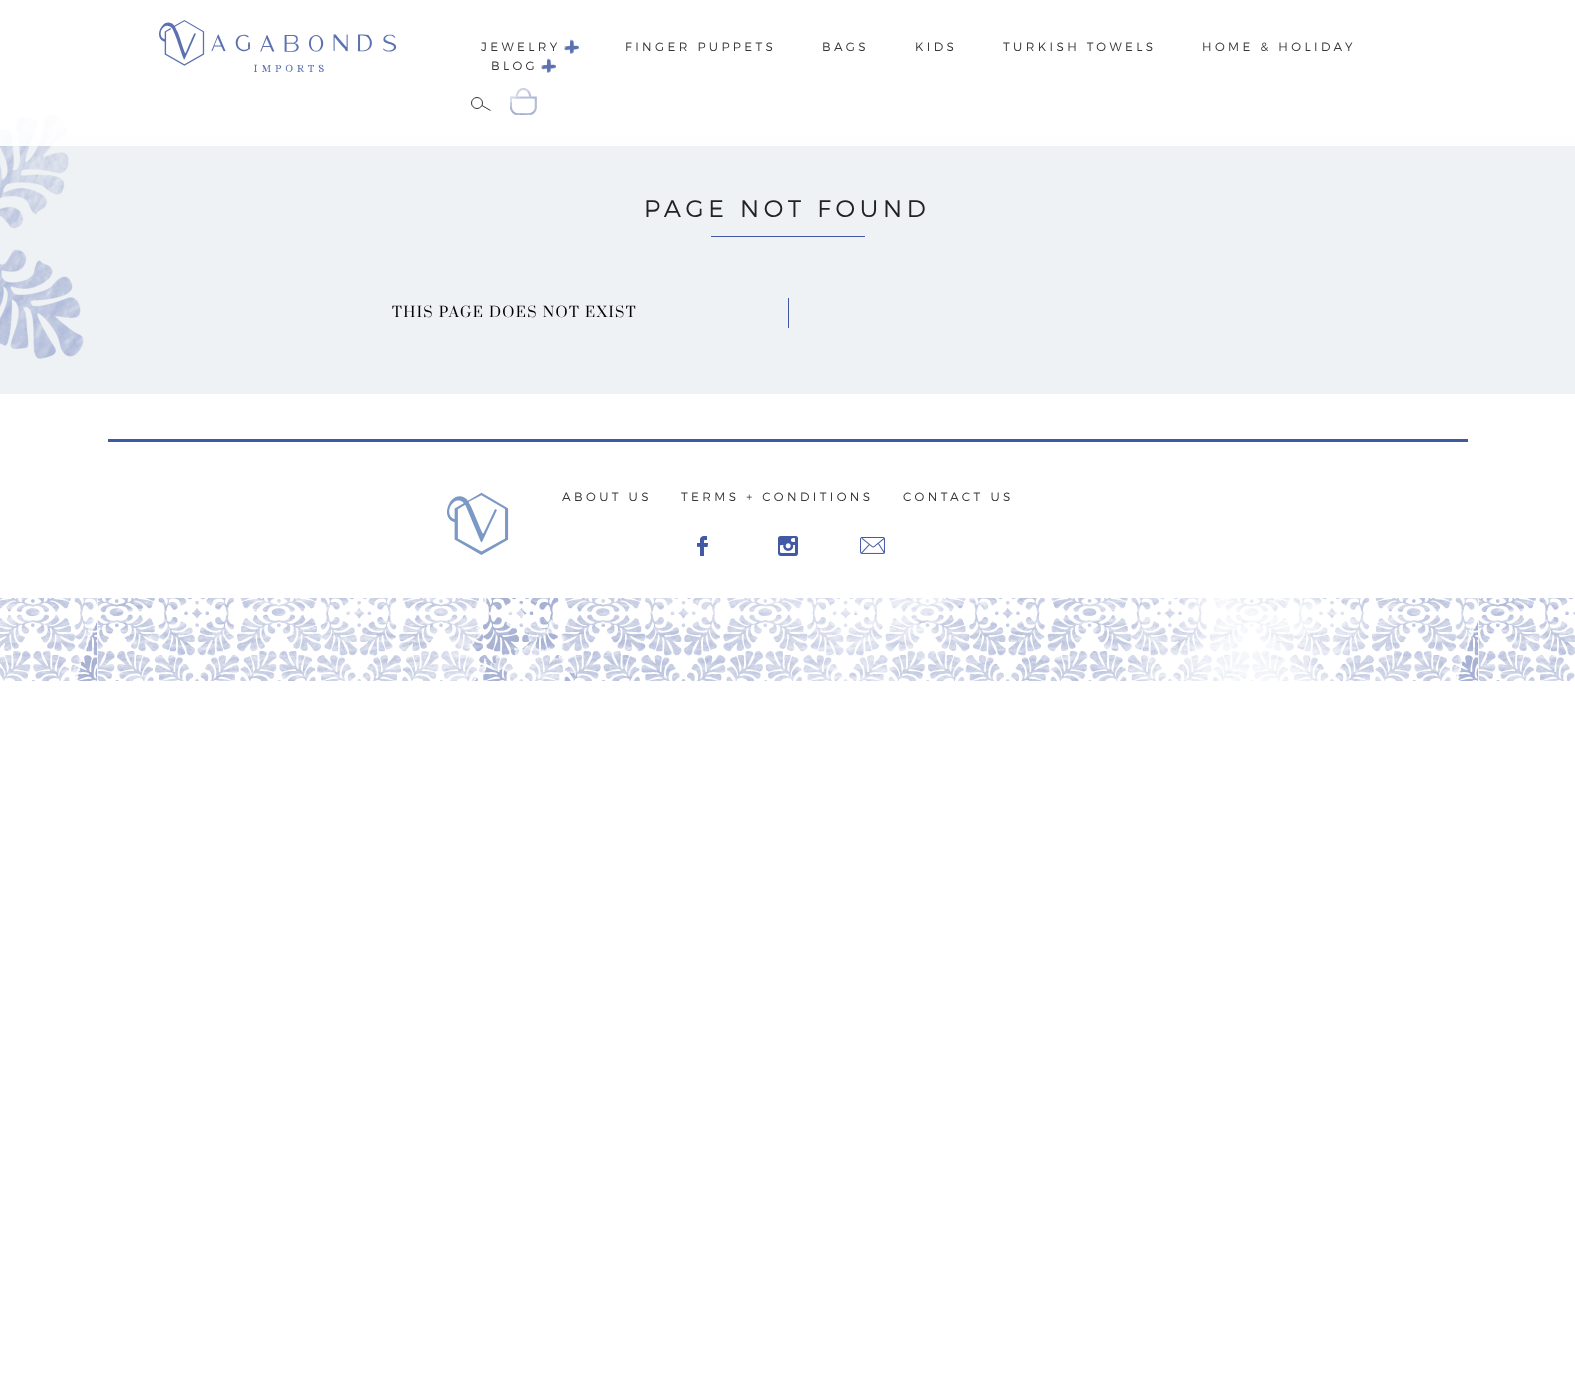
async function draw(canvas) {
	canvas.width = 1575;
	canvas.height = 1400;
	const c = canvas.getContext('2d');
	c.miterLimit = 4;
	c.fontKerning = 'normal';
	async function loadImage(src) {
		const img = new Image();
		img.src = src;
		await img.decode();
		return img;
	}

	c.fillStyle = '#fff';
	c.fillRect(0, 0, 1575, 1400);
	c.fillStyle = '#eff2f4';
	c.fillRect(0, 135, 1575, 259);
	c.drawImage(await loadImage('img4.png'), 0, 114, 84, 245);
	c.fillStyle = '#ffffffe6';
	c.fillRect(0, 114, 1575, 32);
	c.drawImage(await loadImage('img1.png'), 159, 20, 237, 52);
	c.letterSpacing = '3.4px';
	c.font = '300 12px Montserrat';
	c.fillStyle = '#353535';
	c.fillText('JEWELRY', 481, 51);
	c.drawImage(await loadImage('img2.png'), 564, 39, 15, 15);
	for (const [text, x, y] of [
		['FINGER PUPPETS', 625, 51],
		['BAGS', 822, 51],
		['KIDS', 915, 51],
		['TURKISH TOWELS', 1003, 51],
		['HOME & HOLIDAY', 1202, 51],
		['BLOG', 491, 70],
	]) {
		c.fillText(text, x, y);
	}
	c.drawImage(await loadImage('img2.png'), 541, 58, 15, 15);
	c.beginPath();
	c.arc(477, 103, 5.5, 0, 2 * Math.PI);
	c.strokeStyle = '#363636';
	c.stroke();
	c.beginPath();
	c.moveTo(482, 105.5);
	c.lineTo(490.5, 110.5);
	c.stroke();
	c.drawImage(await loadImage('img3.png'), 510, 88, 27, 27);
	c.letterSpacing = '4.75px';
	c.font = '300 24px Montserrat';
	c.fillStyle = '#222';
	c.fillText('PAGE NOT FOUND', 644, 217);
	c.fillStyle = '#425aa3';
	c.fillRect(711, 236, 154, 1);
	c.letterSpacing = '1.4px';
	c.font = '14px Prata';
	c.fillStyle = '#000';
	c.fillText('THIS PAGE DOES NOT EXIST', 392, 317);
	c.fillStyle = '#4159a2';
	c.fillRect(788, 298, 1, 30);
	c.drawImage(await loadImage('img5.png'), 0, 598, 1575, 83);
	c.fillRect(108, 439, 1360, 3);
	c.drawImage(await loadImage('img6.png'), 447, 492, 62, 63);
	c.letterSpacing = '3.4px';
	c.font = '300 12px Montserrat';
	c.fillStyle = '#353535';
	for (const [text, x, y] of [
		['ABOUT US', 562, 501],
		['TERMS + CONDITIONS', 681, 501],
		['CONTACT US', 903, 501],
	]) {
		c.fillText(text, x, y);
	}
	c.drawImage(await loadImage('img7.png'), 697, 536, 11, 20);
	c.drawImage(await loadImage('img8.png'), 778, 536, 20, 20);
	c.drawImage(await loadImage('img9.png'), 860, 537, 25, 17);
}

draw(document.querySelector('canvas'));
